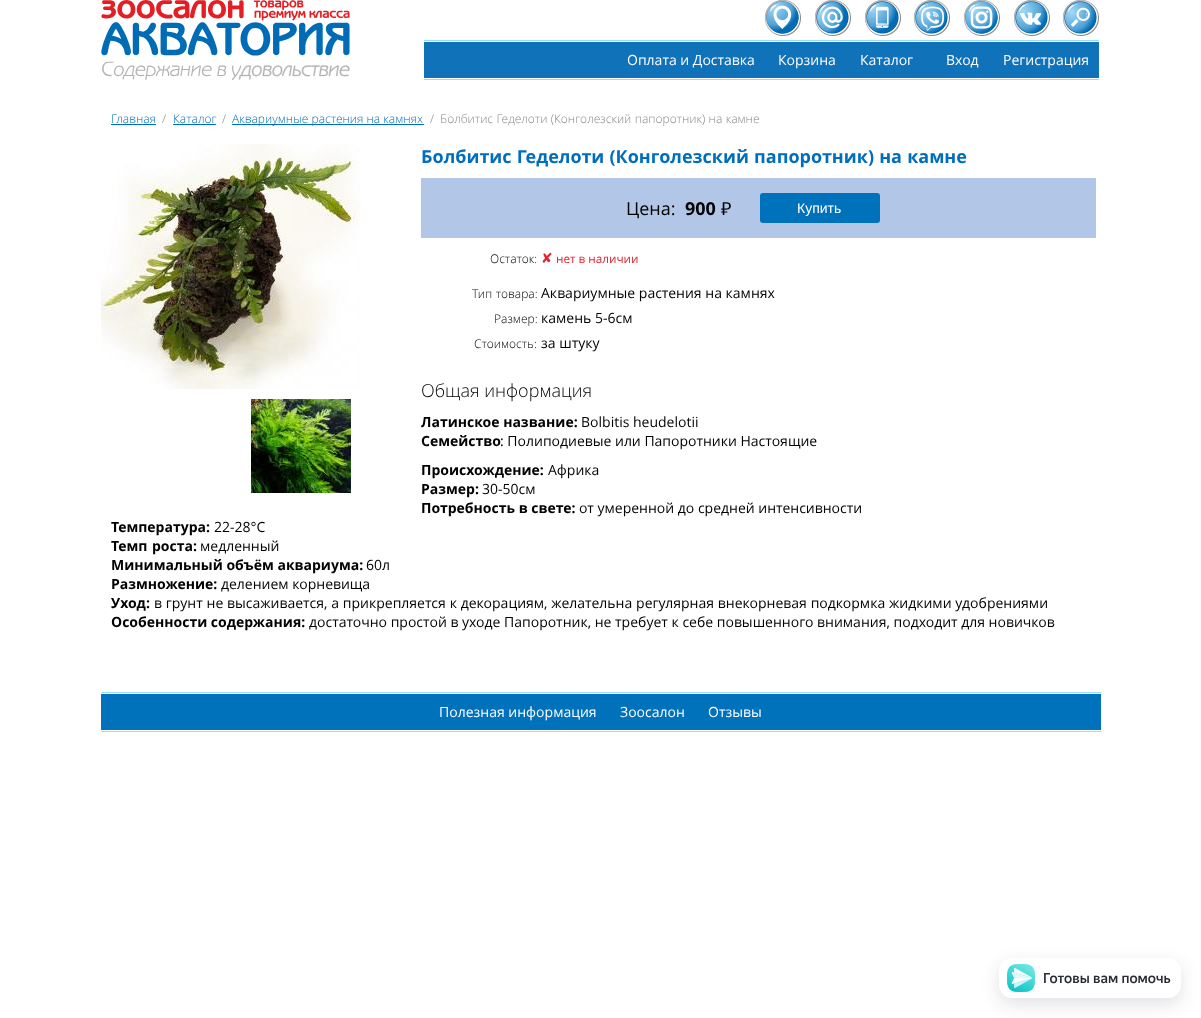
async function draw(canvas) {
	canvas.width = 1201;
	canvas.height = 1018;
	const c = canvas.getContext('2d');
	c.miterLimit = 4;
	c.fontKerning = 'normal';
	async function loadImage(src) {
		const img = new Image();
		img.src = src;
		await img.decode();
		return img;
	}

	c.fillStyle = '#fff';
	c.fillRect(0, 0, 1201, 1018);
	c.drawImage(await loadImage('img1.png'), 101, 0, 249, 80);
	c.drawImage(await loadImage('img2.png'), 765, 0, 36, 36);
	c.drawImage(await loadImage('img3.png'), 815, 0, 36, 36);
	c.drawImage(await loadImage('img4.png'), 865, 0, 36, 36);
	c.drawImage(await loadImage('img5.png'), 914, 0, 36, 36);
	c.drawImage(await loadImage('img6.png'), 964, 0, 36, 36);
	c.drawImage(await loadImage('img7.png'), 1014, 0, 36, 36);
	c.drawImage(await loadImage('img8.png'), 1063, 0, 36, 36);
	c.drawImage(await loadImage('img9.png'), 424, 40, 675, 40);
	c.font = '14px Open Sans';
	for (const [text, x, y] of [
		['Оплата и Доставка', 627, 65],
		['Корзина', 778, 65],
		['Каталог', 860, 65],
		['Вход', 946, 65],
		['Регистрация', 1003, 65],
	]) {
		c.fillText(text, x, y);
	}
	c.font = '300 12px Open Sans';
	c.fillStyle = '#006ebe';
	c.fillText('Главная', 111, 123);
	c.fillRect(111, 124, 45, 1);
	c.fillStyle = '#888';
	c.fillText('/', 162, 123);
	c.fillStyle = '#006ebe';
	c.fillText('Каталог', 173, 123);
	c.fillRect(173, 124, 43, 1);
	c.fillStyle = '#888';
	c.fillText('/', 222, 123);
	c.fillStyle = '#006ebe';
	c.fillRect(232, 124, 192, 1);
	c.fillText('Аквариумные растения на камнях', 232, 123);
	c.fillStyle = '#888';
	c.fillText('/', 430, 123);
	c.wordSpacing = '0.25px';
	c.fillText('Болбитис Геделоти (Конголезский папоротник) на камне', 440, 123);
	c.drawImage(await loadImage('img10.png'), 101, 144, 260, 245);
	c.drawImage(await loadImage('img11.png'), 251, 399, 100, 94);
	c.wordSpacing = '0.5px';
	c.font = 'bold 18px Open Sans';
	c.fillStyle = '#006ebe';
	c.fillText('Болбитис Геделоти (Конголезский папоротник) на камне', 421, 163);
	c.fillStyle = '#b2c6e7';
	c.fillRect(421, 178, 675, 60);
	c.wordSpacing = '0px';
	c.font = '18px Open Sans';
	c.fillStyle = '#000';
	c.fillText('Цена:', 626, 215);
	c.font = 'bold 18px Open Sans';
	c.fillText('900', 685, 215);
	c.font = '18px Noto Sans';
	c.fillText('₽', 721, 215);
	c.fillStyle = '#0072bb';
	c.beginPath();
	c.roundRect(760, 193, 120, 30, 3);
	c.fill();
	c.font = '14px Liberation Sans';
	c.fillStyle = '#fff';
	c.fillText('Купить', 797, 213);
	c.font = '300 12px Open Sans';
	c.fillStyle = '#000';
	c.fillText('Остаток:', 490, 263);
	c.font = '14px DejaVu Sans';
	c.fillStyle = '#e32530';
	c.fillText('✘', 541, 263);
	c.font = '11.75px Open Sans';
	c.fillText('нет в наличии', 556, 263);
	c.wordSpacing = '0.5px';
	c.font = '300 12px Open Sans';
	c.fillStyle = '#000';
	c.fillText('Тип товара:', 472, 298);
	c.wordSpacing = '0px';
	c.font = '14px Open Sans';
	c.fillText('Аквариумные растения на камнях', 541, 298);
	c.font = '300 12px Open Sans';
	c.fillText('Размер:', 494, 323);
	c.font = '14px Open Sans';
	c.fillText('камень 5-6см', 541, 323);
	c.font = '300 12px Open Sans';
	c.fillText('Стоимость:', 474, 348);
	c.font = '14px Open Sans';
	c.fillText('за штуку', 541, 348);
	c.font = '300 18px Open Sans';
	c.fillText('Общая информация', 421, 397);
	c.font = 'bold 14px Open Sans';
	c.fillText('Латинское название:', 421, 427);
	c.font = '14px Open Sans';
	c.fillText('Bolbitis heudelotii', 581, 427);
	c.font = 'bold 14px Open Sans';
	c.fillText('Семейство', 421, 446);
	c.font = '14px Open Sans';
	c.fillText(': Полиподиевые или Папоротники Настоящие', 500, 446);
	c.font = 'bold 14px Open Sans';
	c.fillText('Происхождение:', 421, 475);
	c.font = '14px Open Sans';
	c.fillText('Африка', 548, 475);
	c.font = 'bold 14px Open Sans';
	c.fillText('Размер:', 421, 494);
	c.font = '14px Open Sans';
	c.fillText('30-50см', 482, 494);
	c.font = 'bold 14px Open Sans';
	c.fillText('Потребность в свете:', 421, 513);
	c.font = '14px Open Sans';
	c.fillText('от умеренной до средней интенсивности', 579, 513);
	c.font = 'bold 14px Open Sans';
	c.fillText('Температура:', 111, 532);
	c.font = '14px Open Sans';
	c.fillText('22-28°С', 214, 532);
	c.wordSpacing = '1px';
	c.font = 'bold 14px Open Sans';
	c.fillText('Темп роста:', 111, 551);
	c.wordSpacing = '0px';
	c.font = '14px Open Sans';
	c.fillText('медленный', 200, 551);
	c.font = 'bold 14px Open Sans';
	c.fillText('Минимальный объём аквариума:', 111, 570);
	c.font = '14px Open Sans';
	c.fillText('60л', 366, 570);
	c.font = 'bold 14px Open Sans';
	c.fillText('Размножение:', 111, 589);
	c.font = '14px Open Sans';
	c.fillText('делением корневища', 221, 589);
	c.font = 'bold 14px Open Sans';
	c.fillText('Уход:', 111, 608);
	c.wordSpacing = '0.2px';
	c.font = '14px Open Sans';
	c.fillText('в грунт не высаживается, а прикрепляется к декорациям, желательна регулярная внекорневая подкормка жидкими удобрениями', 154, 608);
	c.wordSpacing = '0px';
	c.font = 'bold 14px Open Sans';
	c.fillText('Особенности содержания:', 111, 627);
	c.font = '14px Open Sans';
	c.fillText('достаточно простой в уходе Папоротник, не требует к себе повышенного внимания, подходит для новичков', 309, 627);
	for (const [x, y, w, h, color] of [
		[101, 694, 1000, 36, '#0072bb'],
		[101, 692, 1000, 1, '#98dcff'],
		[101, 731, 1000, 1, '#98dcff'],
	]) {
		c.fillStyle = color;
		c.fillRect(x, y, w, h);
	}
	c.fillStyle = '#fff';
	for (const [text, x, y] of [
		['Полезная информация', 439, 717],
		['Зоосалон', 620, 717],
		['Отзывы', 708, 717],
	]) {
		c.fillText(text, x, y);
	}
	c.fillStyle = '#0e152f21';
	c.filter = 'blur(9px)';
	c.beginPath();
	c.roundRect(999, 964, 182, 40, 13);
	c.fill();
	c.filter = 'none';
	c.fillStyle = '#fff';
	c.beginPath();
	c.roundRect(999, 958, 182, 40, 13);
	c.fill();
	c.drawImage(await loadImage('img12.png'), 1007, 964, 28, 28);
	c.font = '500 14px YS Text';
	c.fillStyle = '#292c33';
	c.fillText('Готовы вам помочь', 1043, 983);
}

draw(document.querySelector('canvas'));
